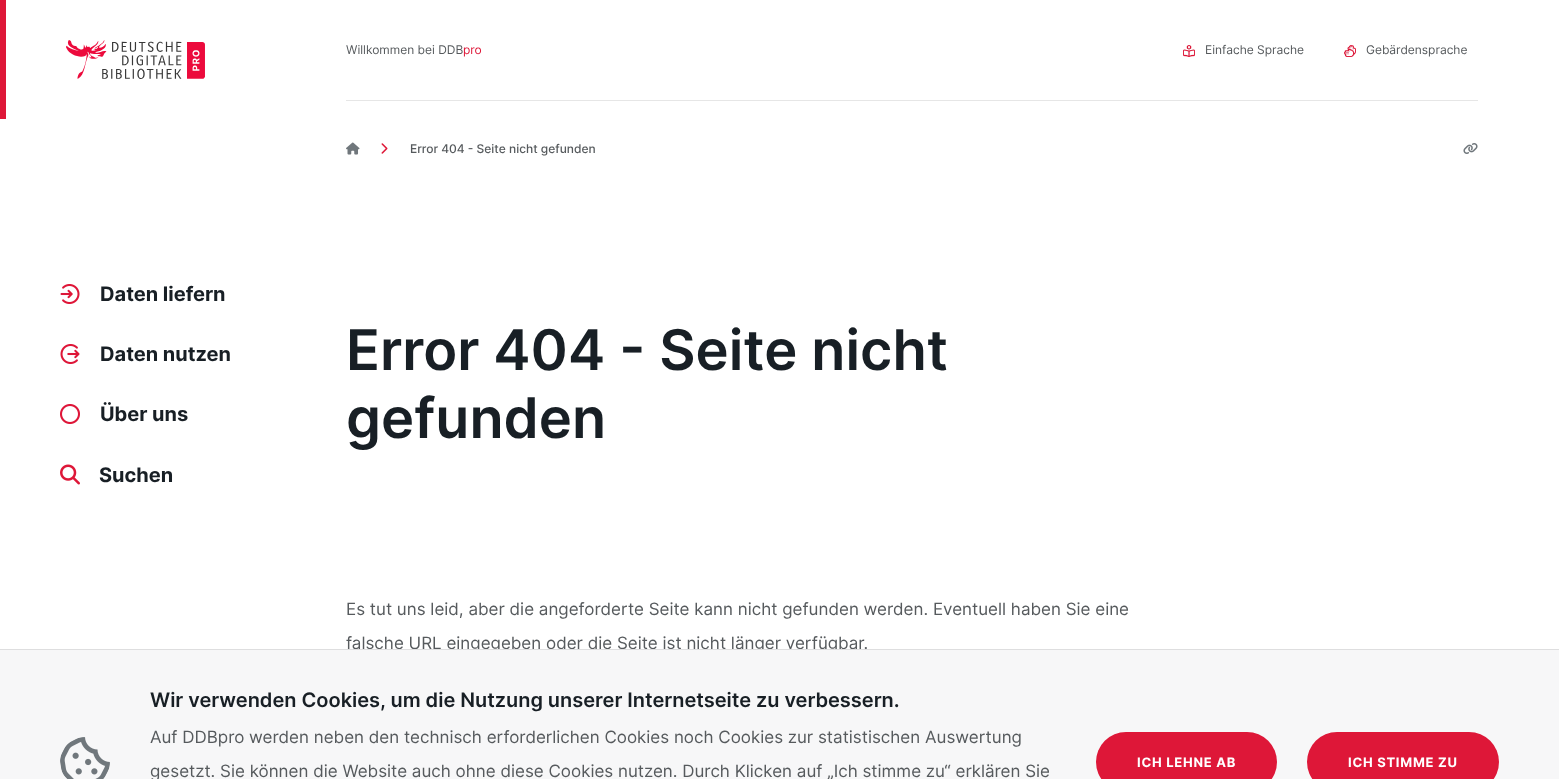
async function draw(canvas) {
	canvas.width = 1559;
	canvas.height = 779;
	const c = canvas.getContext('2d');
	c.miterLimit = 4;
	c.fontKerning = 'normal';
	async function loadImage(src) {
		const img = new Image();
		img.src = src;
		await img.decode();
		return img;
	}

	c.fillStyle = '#fff';
	c.fillRect(0, 0, 1559, 779);
	c.fillStyle = '#e6e6e6';
	c.fillRect(346, 100, 1132, 1);
	c.font = '12px Inter';
	c.fillStyle = '#565a5d';
	c.fillText('Willkommen bei DDB', 346, 54);
	c.fillStyle = '#de1738';
	c.fillText('pro', 463, 54);
	c.drawImage(await loadImage('img1.png'), 1183, 45, 12, 12);
	c.fillStyle = '#565a5d';
	c.fillText('Einfache Sprache', 1205, 54);
	c.drawImage(await loadImage('img2.png'), 1344, 45, 12, 12);
	c.fillText('Gebärdensprache', 1366, 54);
	c.fillStyle = '#de1738';
	c.fillRect(0, 0, 6, 119);
	c.drawImage(await loadImage('img3.png'), 66, 40, 139, 39);
	c.drawImage(await loadImage('img4.png'), 60, 284, 20, 20);
	c.font = 'bold 20px Inter';
	c.fillStyle = '#181f25';
	c.fillText('Daten liefern', 100, 301);
	c.drawImage(await loadImage('img5.png'), 60, 344, 20, 20);
	c.fillText('Daten nutzen', 100, 361);
	c.drawImage(await loadImage('img6.png'), 60, 404, 20, 20);
	c.fillText('Über uns', 100, 421);
	c.drawImage(await loadImage('img7.png'), 60, 464, 20, 21);
	c.fillText('Suchen', 99, 482);
	c.drawImage(await loadImage('img8.png'), 346, 142, 14, 13);
	c.drawImage(await loadImage('img9.png'), 381, 143, 7, 11);
	c.font = '500 12px Inter';
	c.fillStyle = '#565a5d';
	c.fillText('Error 404 - Seite nicht gefunden', 410, 153);
	c.drawImage(await loadImage('img10.png'), 1463, 143, 15, 11);
	c.font = '600 56px Inter';
	c.fillStyle = '#181f25';
	c.fillText('Error 404 - Seite nicht', 346, 370);
	c.fillText('gefunden', 346, 438);
	c.font = '17px Inter';
	c.fillStyle = '#565a5d';
	c.fillText('Es tut uns leid, aber die angeforderte Seite kann nicht gefunden werden. Eventuell haben Sie eine', 346, 615);
	c.fillText('falsche URL eingegeben oder die Seite ist nicht länger verfügbar.', 346, 649);
	c.fillStyle = '#f7f7f8';
	c.fillRect(0, 650, 1559, 129);
	c.fillStyle = '#dededf';
	c.fillRect(0, 649, 1559, 1);
	c.font = '600 20px Inter';
	c.fillStyle = '#181f25';
	c.fillText('Wir verwenden Cookies, um die Nutzung unserer Internetseite zu verbessern.', 150, 707);
	c.drawImage(await loadImage('img11.png'), 60, 737, 50, 42);
	c.font = '17px Inter';
	c.fillStyle = '#565a5d';
	c.fillText('Auf DDBpro werden neben den technisch erforderlichen Cookies noch Cookies zur statistischen Auswertung', 150, 743);
	c.fillText('gesetzt. Sie können die Website auch ohne diese Cookies nutzen. Durch Klicken auf „Ich stimme zu“ erklären Sie', 150, 777);
	c.fillStyle = '#de1738';
	c.beginPath();
	c.roundRect(1096, 732, 181, 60, 30);
	c.fill();
	c.letterSpacing = '0.75px';
	c.font = 'bold 13px Inter';
	c.fillStyle = '#fff';
	c.fillText('ICH LEHNE AB', 1137, 767);
	c.fillStyle = '#de1738';
	c.beginPath();
	c.roundRect(1307, 732, 192, 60, 30);
	c.fill();
	c.fillStyle = '#fff';
	c.fillText('ICH STIMME ZU', 1348, 767);
}

draw(document.querySelector('canvas'));
